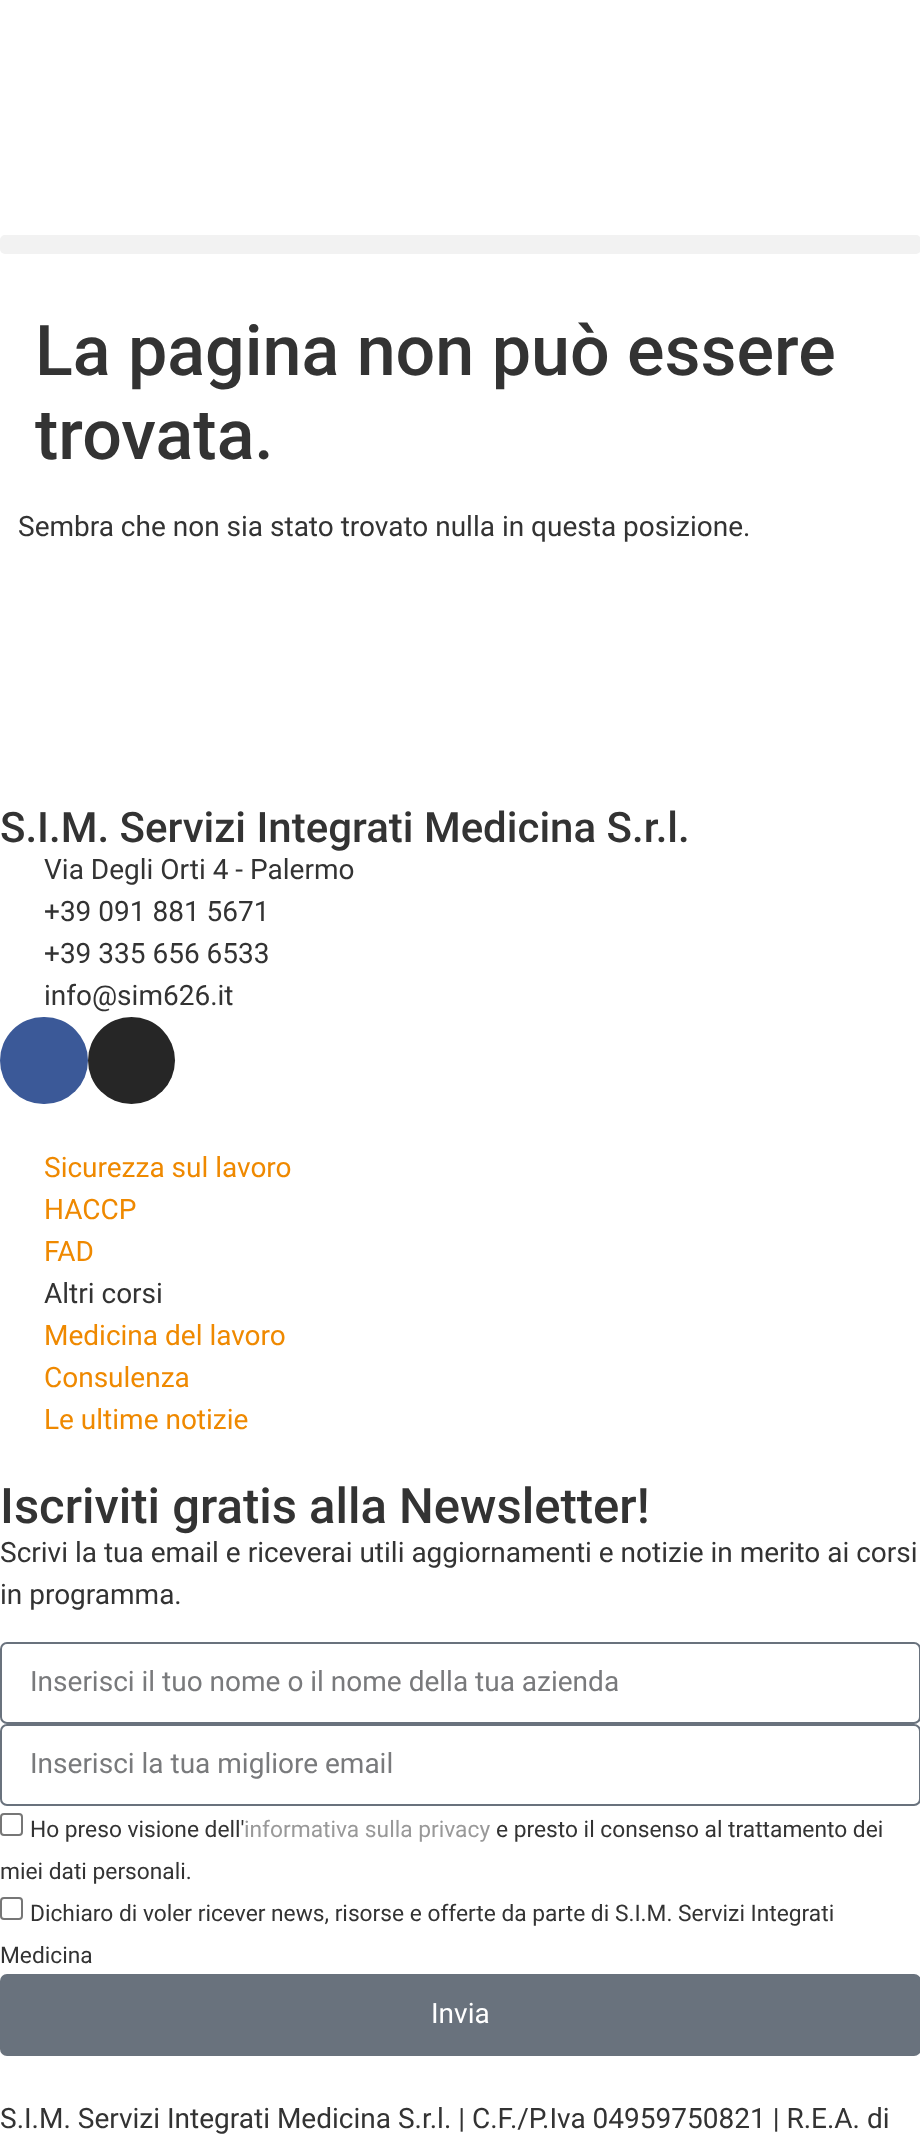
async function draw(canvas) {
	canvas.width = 920;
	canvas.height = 2156;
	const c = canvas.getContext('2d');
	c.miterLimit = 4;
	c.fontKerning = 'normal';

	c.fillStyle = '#fff';
	c.fillRect(0, 0, 920, 2156);
	c.fillStyle = '#f2f2f2';
	c.beginPath();
	c.roundRect(0, 235, 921, 19, 5);
	c.fill();
	c.font = '500 70px Roboto';
	c.fillStyle = '#333';
	c.fillText('La pagina non può essere', 35, 375);
	c.fillText('trovata.', 35, 459);
	c.font = '28px Roboto';
	c.fillText('Sembra che non sia stato trovato nulla in questa posizione.', 18, 536);
	c.font = '500 42px Roboto';
	c.fillText('S.I.M. Servizi Integrati Medicina S.r.l.', 0, 842);
	c.font = '28px Roboto';
	for (const [text, x, y] of [
		['Via Degli Orti 4 - Palermo', 44, 879],
		['+39 091 881 5671', 44, 921],
		['+39 335 656 6533', 44, 963],
		['info@sim626.it', 44, 1005],
	]) {
		c.fillText(text, x, y);
	}
	c.fillStyle = '#3b5998';
	c.beginPath();
	c.roundRect(0, 1017, 88, 87, 43.5);
	c.fill();
	c.fillStyle = '#262626';
	c.beginPath();
	c.arc(131.5, 1060.5, 43.5, 0, 2 * Math.PI);
	c.fill();
	c.fillStyle = '#ef8900';
	for (const [text, x, y] of [
		['Sicurezza sul lavoro', 44, 1177],
		['HACCP', 44, 1219],
		['FAD', 44, 1261],
	]) {
		c.fillText(text, x, y);
	}
	c.fillStyle = '#333';
	c.fillText('Altri corsi', 44, 1303);
	c.fillStyle = '#ef8900';
	for (const [text, x, y] of [
		['Medicina del lavoro', 44, 1345],
		['Consulenza', 44, 1387],
		['Le ultime notizie', 44, 1429],
	]) {
		c.fillText(text, x, y);
	}
	c.font = '500 49px Roboto';
	c.fillStyle = '#333';
	c.fillText('Iscriviti gratis alla Newsletter!', 0, 1523);
	c.font = '28px Roboto';
	c.fillText('Scrivi la tua email e riceverai utili aggiornamenti e notizie in merito ai corsi', 0, 1562);
	c.fillText('in programma.', 0, 1604);
	c.beginPath();
	c.roundRect(1, 1643, 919, 80, 6);
	c.strokeStyle = '#69727d';
	c.lineWidth = 2;
	c.stroke();
	c.fillStyle = '#797a7c';
	c.fillText('Inserisci il tuo nome o il nome della tua azienda', 30, 1691);
	c.beginPath();
	c.roundRect(1, 1725, 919, 80, 6);
	c.stroke();
	c.fillText('Inserisci la tua migliore email', 30, 1773);
	c.beginPath();
	c.roundRect(1, 1814, 21, 21, 3);
	c.strokeStyle = '#767676';
	c.stroke();
	c.font = '22.75px Roboto';
	c.fillStyle = '#333';
	c.fillText('Ho preso visione dell\'', 30, 1837);
	c.fillStyle = '#999';
	c.fillText('informativa sulla privacy', 244, 1837);
	c.fillStyle = '#333';
	c.fillText('e presto il consenso al trattamento dei', 496, 1837);
	c.fillText('miei dati personali.', 0, 1879);
	c.beginPath();
	c.roundRect(1, 1898, 21, 21, 3);
	c.stroke();
	c.fillText('Dichiaro di voler ricever news, risorse e offerte da parte di S.I.M. Servizi Integrati', 30, 1921);
	c.fillText('Medicina', 0, 1963);
	c.fillStyle = '#69727d';
	c.beginPath();
	c.roundRect(0, 1974, 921, 82, 7);
	c.fill();
	c.font = '28px Roboto';
	c.fillStyle = '#fff';
	c.fillText('Invia', 431, 2023);
	c.fillStyle = '#333';
	c.fillText('S.I.M. Servizi Integrati Medicina S.r.l. | C.F./P.Iva 04959750821 | R.E.A. di', 0, 2128);
}

draw(document.querySelector('canvas'));
